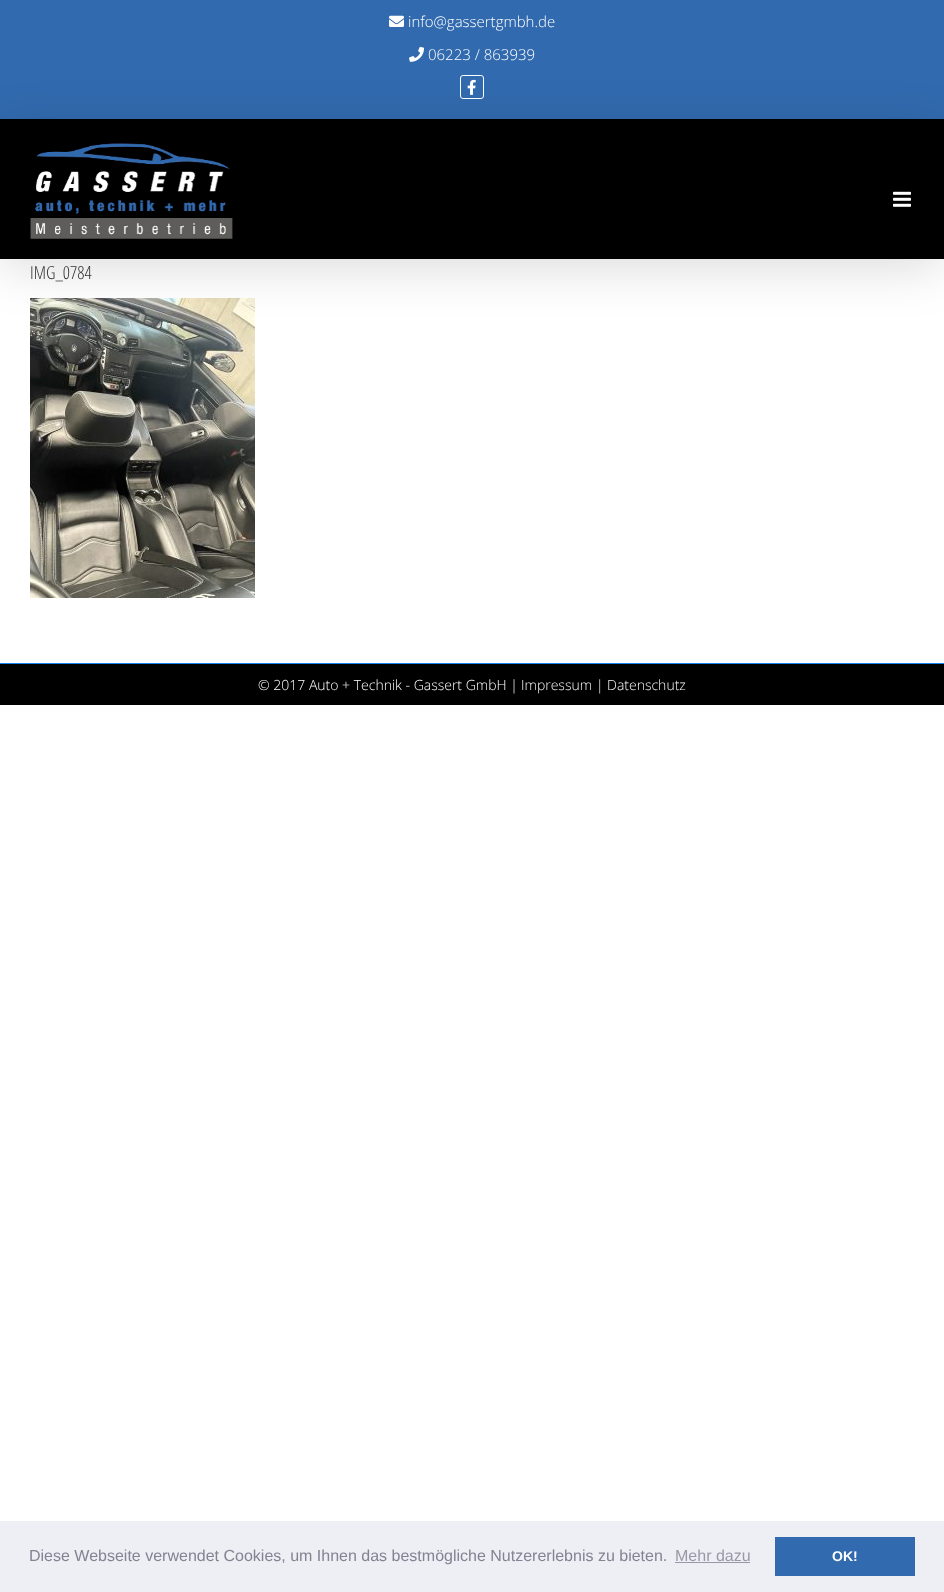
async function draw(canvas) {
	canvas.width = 944;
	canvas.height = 1592;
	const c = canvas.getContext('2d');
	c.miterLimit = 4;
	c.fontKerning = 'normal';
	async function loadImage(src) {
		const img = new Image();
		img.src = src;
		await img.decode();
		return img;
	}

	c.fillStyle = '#fff';
	c.fillRect(0, 0, 944, 1592);
	c.fillStyle = '#316aae';
	c.fillRect(0, 0, 944, 119);
	c.drawImage(await loadImage('img1.png'), 389, 15, 15, 12);
	c.font = '300 15px "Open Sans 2"';
	c.fillStyle = '#fff';
	c.fillText('info@gassertgmbh.de', 408, 27);
	c.drawImage(await loadImage('img2.png'), 409, 46, 15, 16);
	c.fillText('06223 / 863939', 428, 60);
	c.beginPath();
	c.roundRect(460.5, 75.5, 23, 23, 2.5);
	c.strokeStyle = '#fff';
	c.stroke();
	c.drawImage(await loadImage('img3.png'), 467, 79, 9, 16);
	c.drawImage(await loadImage('img6.png'), 30, 298, 225, 300);
	c.fillStyle = '#00000024';
	c.filter = 'blur(25px)';
	c.beginPath();
	c.rect(2, 131, 940, 136);
	c.fill();
	c.filter = 'none';
	c.fillStyle = '#000';
	c.fillRect(0, 119, 944, 140);
	c.drawImage(await loadImage('img4.png'), 30, 143, 203, 96);
	c.drawImage(await loadImage('img5.png'), 893, 191, 18, 16);
	c.font = '300 18px Open Sans';
	c.fillStyle = '#333';
	c.fillText('IMG_0784', 30, 279);
	c.fillStyle = '#000';
	c.fillRect(0, 664, 944, 41);
	c.fillStyle = '#1582ef';
	c.fillRect(0, 663, 944, 1);
	c.font = '300 14px "Open Sans 2"';
	c.fillStyle = '#fff';
	c.fillText('© 2017 Auto + Technik - Gassert GmbH |', 258, 690);
	c.fillStyle = '#f9f9f9';
	c.fillText('Impressum', 521, 690);
	c.fillStyle = '#fff';
	c.fillText('|', 596, 690);
	c.fillStyle = '#f9f9f9';
	c.fillText('Datenschutz', 607, 690);
	c.fillStyle = '#edeff5';
	c.fillRect(0, 1521, 944, 71);
	c.font = '16px Liberation Sans';
	c.fillStyle = '#838391';
	c.fillText('Diese Webseite verwendet Cookies, um Ihnen das bestmögliche Nutzererlebnis zu bieten.', 29, 1561);
	c.fillStyle = '#9899a5';
	c.fillText('Mehr dazu', 675, 1561);
	c.fillRect(675, 1562, 75, 1);
	c.fillStyle = '#316aae';
	c.fillRect(775, 1537, 140, 39);
	c.font = 'bold 14px Liberation Sans';
	c.fillStyle = '#fff';
	c.fillText('OK!', 832, 1561);
}

draw(document.querySelector('canvas'));
